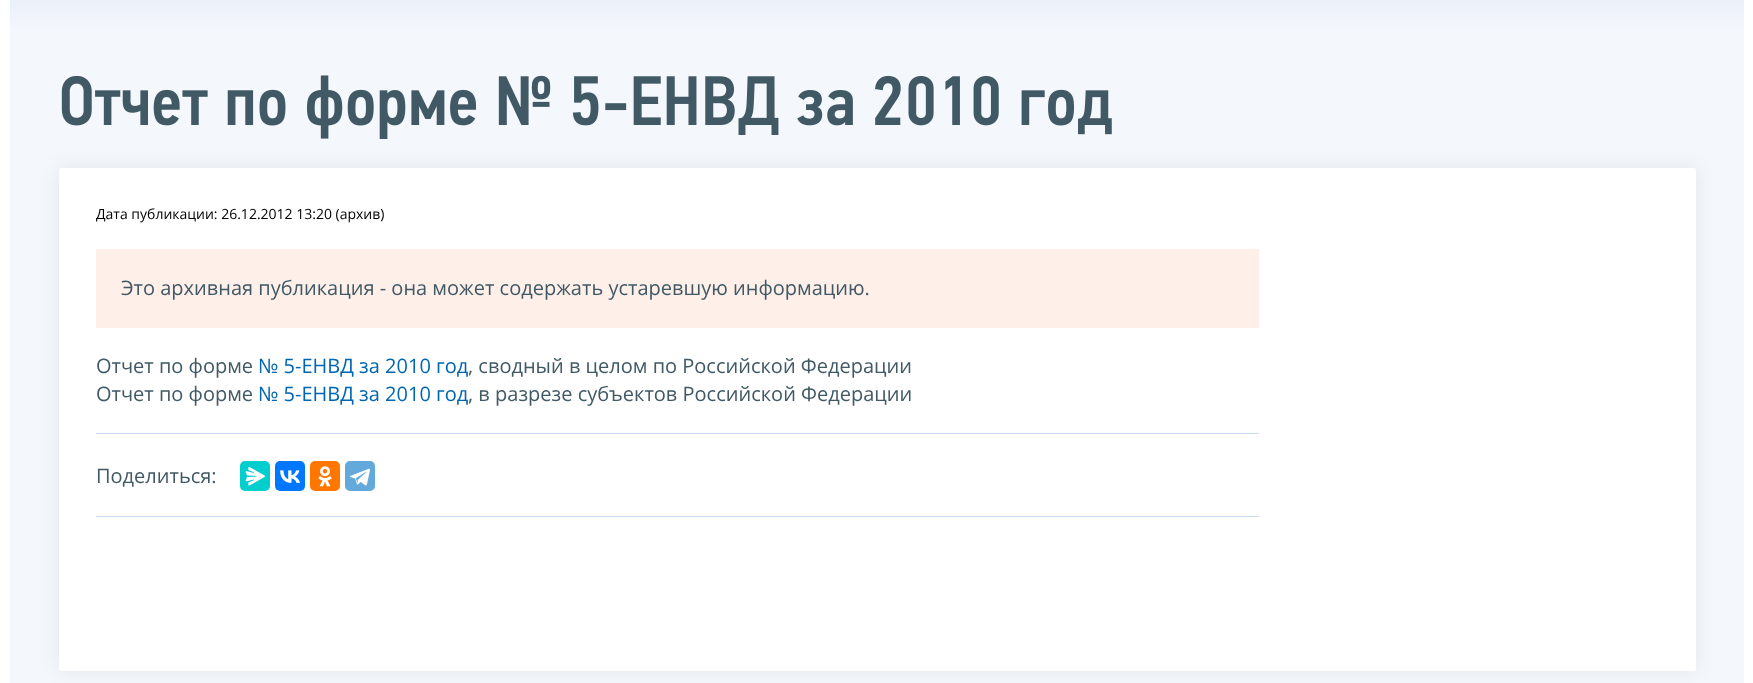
async function draw(canvas) {
	canvas.width = 1753;
	canvas.height = 683;
	const c = canvas.getContext('2d');
	c.miterLimit = 4;
	c.fontKerning = 'normal';
	async function loadImage(src) {
		const img = new Image();
		img.src = src;
		await img.decode();
		return img;
	}
	let gradient;

	c.fillStyle = '#fff';
	c.fillRect(0, 0, 1753, 683);
	c.fillStyle = '#f4f7fc';
	c.fillRect(10, 31, 1734, 652);
	gradient = c.createLinearGradient(877, -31, 877, 31);
	gradient.addColorStop(0, '#e2eaf6');
	gradient.addColorStop(1, '#f4f7fc');
	c.fillStyle = gradient;
	c.fillRect(10, 0, 1734, 31);
	c.fillStyle = '#00000012';
	c.filter = 'blur(9.5px)';
	c.beginPath();
	c.roundRect(59, 168, 1637, 503, 2.5);
	c.fill();
	c.filter = 'none';
	c.drawImage(await loadImage('img1.png'), 61, 75, 1051, 64);
	c.fillStyle = '#fff';
	c.beginPath();
	c.roundRect(59, 168, 1637, 503, 2.5);
	c.fill();
	c.font = '14px Open Sans';
	c.fillStyle = '#000';
	c.fillText('Дата публикации: 26.12.2012 13:20 (архив)', 96, 219);
	c.fillStyle = '#feefe9';
	c.fillRect(96, 249, 1163, 79);
	c.font = '20px Open Sans';
	c.fillStyle = '#405965';
	c.fillText('Это архивная публикация - она может содержать устаревшую информацию.', 121, 295);
	c.fillText('Отчет по форме', 96, 373);
	c.fillStyle = '#0066b3';
	c.fillText('№ 5-ЕНВД за 2010 год', 258, 373);
	c.fillStyle = '#405965';
	c.fillText(', сводный в целом по Российской Федерации', 468, 373);
	c.fillText('Отчет по форме', 96, 401);
	c.fillStyle = '#0066b3';
	c.fillText('№ 5-ЕНВД за 2010 год', 258, 401);
	c.fillStyle = '#405965';
	c.fillText(', в разрезе субъектов Российской Федерации', 468, 401);
	c.fillStyle = '#caddf2';
	c.fillRect(96, 433, 1163, 1);
	c.fillRect(96, 516, 1163, 1);
	c.fillStyle = '#405965';
	c.fillText('Поделиться:', 96, 483);
	c.fillStyle = '#03cece';
	c.beginPath();
	c.roundRect(240, 461, 30, 30, 5);
	c.fill();
	c.drawImage(await loadImage('img2.png'), 245, 467, 20, 19);
	c.fillStyle = '#07f';
	c.beginPath();
	c.roundRect(275, 461, 30, 30, 5);
	c.fill();
	c.drawImage(await loadImage('img3.png'), 280, 470, 20, 13);
	c.fillStyle = '#f70';
	c.beginPath();
	c.roundRect(310, 461, 30, 30, 5);
	c.fill();
	c.drawImage(await loadImage('img4.png'), 318, 466, 14, 21);
	c.fillStyle = '#64a9dc';
	c.beginPath();
	c.roundRect(345, 461, 30, 30, 5);
	c.fill();
	c.drawImage(await loadImage('img5.png'), 350, 468, 20, 18);
}

draw(document.querySelector('canvas'));
